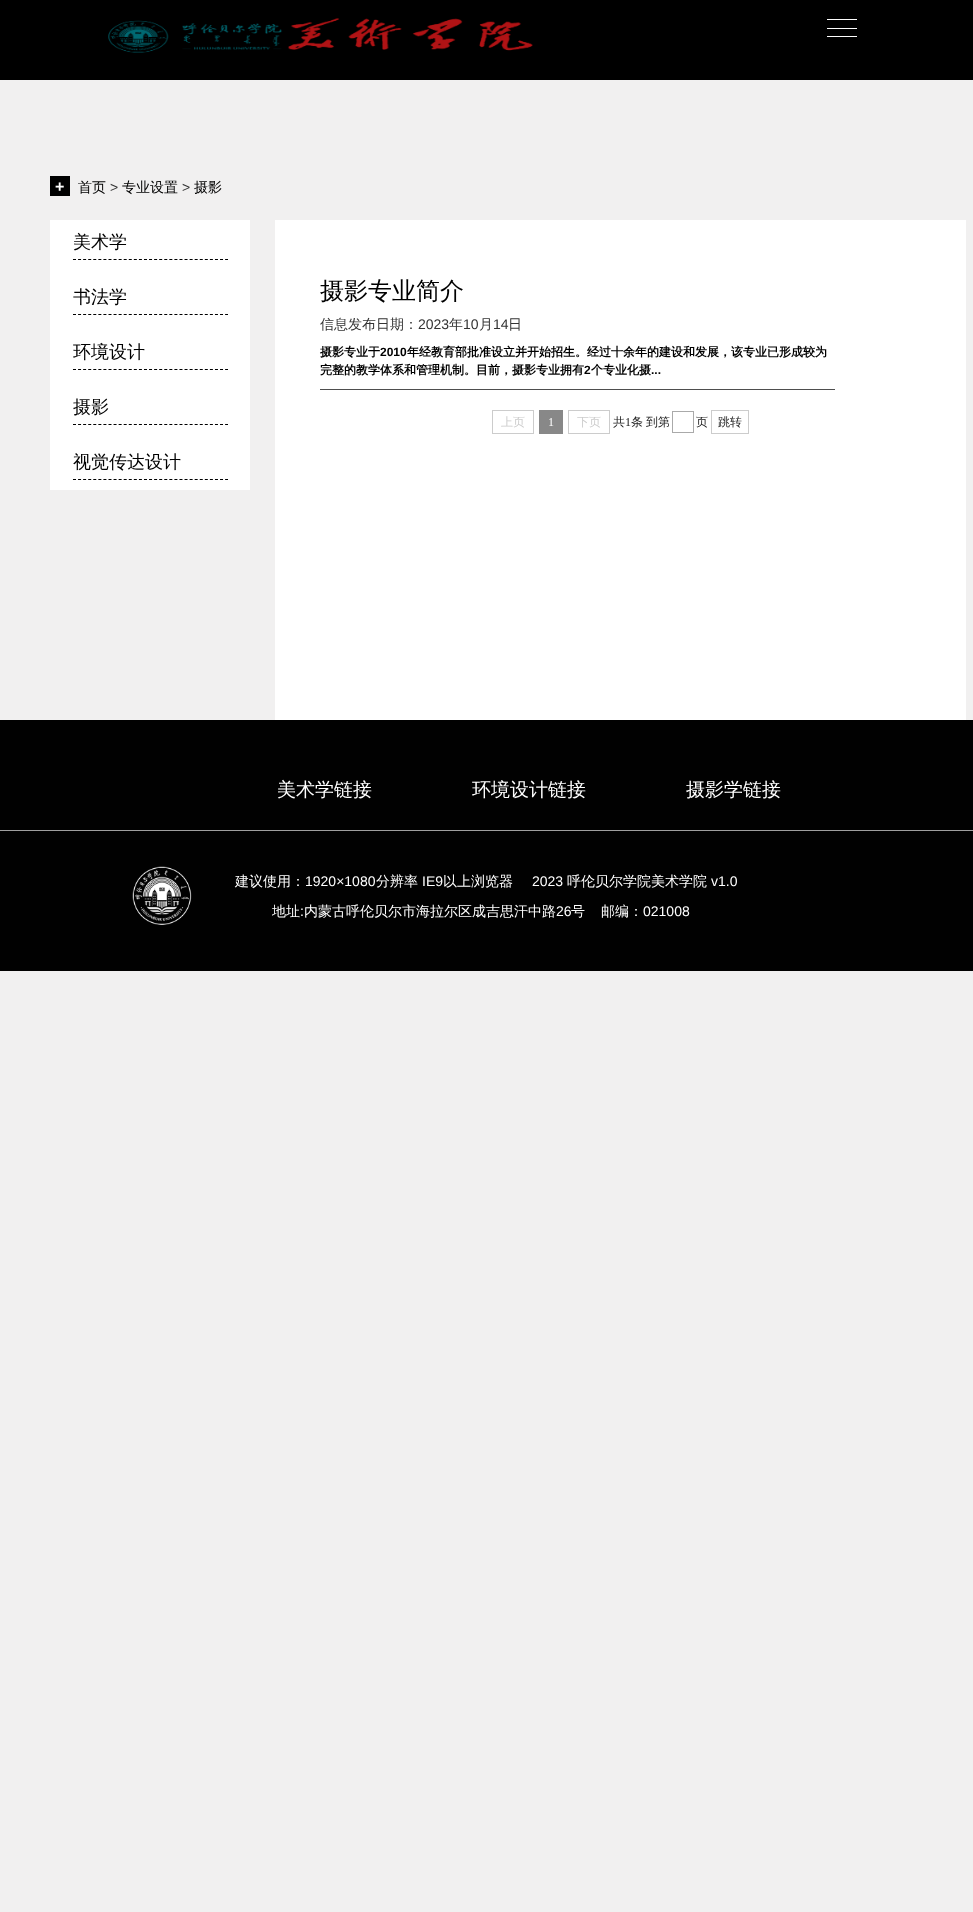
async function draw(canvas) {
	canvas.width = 973;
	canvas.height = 1912;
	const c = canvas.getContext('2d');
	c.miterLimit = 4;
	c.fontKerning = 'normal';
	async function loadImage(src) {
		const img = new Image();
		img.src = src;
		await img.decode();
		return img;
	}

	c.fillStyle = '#f1f0f0';
	c.fillRect(0, 0, 973, 1912);
	c.fillStyle = '#000';
	c.fillRect(0, 0, 973, 80);
	c.drawImage(await loadImage('img1.png'), 108, 18, 425, 35);
	for (const [x, y, w, h, color] of [
		[827, 28, 30, 1, '#fdfdfd'],
		[827, 19, 30, 1, '#fdfdfd'],
		[827, 36, 30, 1, '#fdfdfd'],
		[50, 220, 200, 270, '#fff'],
		[50, 176, 20, 20, '#000'],
	]) {
		c.fillStyle = color;
		c.fillRect(x, y, w, h);
	}
	c.font = 'bold 16px Liberation Sans';
	c.fillStyle = '#fff';
	c.fillText('+', 55, 192);
	c.font = '500 14px WenQuanYi Zen Hei';
	c.fillStyle = '#000';
	c.fillText('首页', 78, 192);
	c.font = '14px Liberation Sans';
	c.fillStyle = '#333';
	c.fillText('>', 110, 192);
	c.font = '500 14px WenQuanYi Zen Hei';
	c.fillStyle = '#000';
	c.fillText('专业设置', 122, 192);
	c.font = '14px Liberation Sans';
	c.fillStyle = '#333';
	c.fillText('>', 182, 192);
	c.font = '500 14px WenQuanYi Zen Hei';
	c.fillStyle = '#000';
	c.fillText('摄影', 194, 192);
	c.beginPath();
	c.moveTo(73, 259.5);
	c.lineTo(228, 259.5);
	c.strokeStyle = '#000';
	c.setLineDash([3, 2.07]);
	c.stroke();
	c.font = '500 18px WenQuanYi Zen Hei';
	c.fillText('美术学', 73, 248);
	c.beginPath();
	c.moveTo(73, 314.5);
	c.lineTo(228, 314.5);
	c.stroke();
	c.fillText('书法学', 73, 303);
	c.beginPath();
	c.moveTo(73, 369.5);
	c.lineTo(228, 369.5);
	c.stroke();
	c.fillText('环境设计', 73, 358);
	c.beginPath();
	c.moveTo(73, 424.5);
	c.lineTo(228, 424.5);
	c.stroke();
	c.fillText('摄影', 73, 413);
	c.beginPath();
	c.moveTo(73, 479.5);
	c.lineTo(228, 479.5);
	c.stroke();
	c.fillText('视觉传达设计', 73, 468);
	c.fillStyle = '#fff';
	c.fillRect(275, 220, 691, 500);
	c.fillStyle = '#4e4e4e';
	c.fillRect(320, 389, 515, 1);
	c.font = '500 24px WenQuanYi Zen Hei';
	c.fillStyle = '#000';
	c.fillText('摄影专业简介', 320, 299);
	c.font = '500 14px WenQuanYi Zen Hei';
	c.fillStyle = '#333';
	c.fillText('信息发布日期：', 320, 329);
	c.font = '14px Liberation Sans';
	c.fillText('2023', 418, 329);
	c.font = '500 14px WenQuanYi Zen Hei';
	c.fillText('年', 449, 329);
	c.font = '14px Liberation Sans';
	c.fillText('10', 463, 329);
	c.font = '500 14px WenQuanYi Zen Hei';
	c.fillText('月', 479, 329);
	c.font = '14px Liberation Sans';
	c.fillText('14', 493, 329);
	c.font = '500 14px WenQuanYi Zen Hei';
	c.fillText('日', 508, 329);
	c.font = 'bold 12px WenQuanYi Zen Hei';
	c.fillStyle = '#000';
	c.fillText('摄影专业于', 320, 356);
	c.font = 'bold 12px Liberation Sans';
	c.fillText('2010', 380, 356);
	c.font = 'bold 12px WenQuanYi Zen Hei';
	c.fillText('年经教育部批准设立并开始招生。经过十余年的建设和发展，该专业已形成较为', 407, 356);
	c.fillText('完整的教学体系和管理机制。目前，摄影专业拥有', 320, 374);
	c.font = 'bold 12px Liberation Sans';
	c.fillText('2', 584, 374);
	c.font = 'bold 12px WenQuanYi Zen Hei';
	c.fillText('个专业化摄', 591, 374);
	c.font = 'bold 12px Liberation Sans';
	c.fillText('...', 651, 374);
	c.strokeStyle = '#ccc';
	c.setLineDash([]);
	c.strokeRect(492.5, 410.5, 41, 23);
	c.font = '500 12px WenQuanYi Zen Hei';
	c.fillStyle = '#ccc';
	c.fillText('上页', 501, 426);
	c.fillStyle = '#888';
	c.fillRect(539, 410, 24, 24);
	c.font = '12px Liberation Serif';
	c.fillStyle = '#fff';
	c.fillText('1', 548, 426);
	c.strokeRect(568.5, 410.5, 41, 23);
	c.font = '500 12px WenQuanYi Zen Hei';
	c.fillStyle = '#ccc';
	c.fillText('下页', 577, 426);
	c.fillStyle = '#222';
	c.fillText('共', 613, 426);
	c.font = '12px Liberation Serif';
	c.fillText('1', 625, 426);
	c.font = '500 12px WenQuanYi Zen Hei';
	c.fillText('条', 631, 426);
	c.fillText('到第', 646, 426);
	c.strokeStyle = '#aaa';
	c.strokeRect(672.5, 411.5, 21, 21);
	c.fillText('页', 696, 426);
	c.strokeStyle = '#ccc';
	c.strokeRect(711.5, 410.5, 37, 23);
	c.fillText('跳转', 718, 426);
	c.fillStyle = '#010101';
	c.fillRect(0, 720, 973, 251);
	c.fillStyle = '#9f9f9f';
	c.fillRect(0, 830, 973, 1);
	c.font = '500 19px WenQuanYi Zen Hei';
	c.fillStyle = '#fff';
	for (const [text, x, y] of [
		['美术学链接', 277, 796],
		['环境设计链接', 472, 796],
		['摄影学链接', 686, 796],
	]) {
		c.fillText(text, x, y);
	}
	c.drawImage(await loadImage('img2.png'), 132, 866, 60, 59);
	c.font = '500 14px WenQuanYi Zen Hei';
	c.fillText('建议使用：', 235, 886);
	c.font = '14px Liberation Sans';
	c.fillText('1920×1080', 305, 886);
	c.font = '500 14px WenQuanYi Zen Hei';
	c.fillText('分辨率', 376, 886);
	c.font = '14px Liberation Sans';
	c.fillText('IE9', 422, 886);
	c.font = '500 14px WenQuanYi Zen Hei';
	c.fillText('以上浏览器', 443, 886);
	c.font = '14px Liberation Sans';
	c.fillText('2023', 532, 886);
	c.font = '500 14px WenQuanYi Zen Hei';
	c.fillText('呼伦贝尔学院美术学院', 567, 886);
	c.font = '14px Liberation Sans';
	c.fillText('v1.0', 711, 886);
	c.font = '500 14px WenQuanYi Zen Hei';
	c.fillText('地址', 272, 916);
	c.font = '14px Liberation Sans';
	c.fillText(':', 300, 916);
	c.font = '500 14px WenQuanYi Zen Hei';
	c.fillText('内蒙古呼伦贝尔市海拉尔区成吉思汗中路', 304, 916);
	c.font = '14px Liberation Sans';
	c.fillText('26', 556, 916);
	c.font = '500 14px WenQuanYi Zen Hei';
	c.fillText('号', 571, 916);
	c.fillText('邮编：', 601, 916);
	c.font = '14px Liberation Sans';
	c.fillText('021008', 643, 916);
}

draw(document.querySelector('canvas'));
